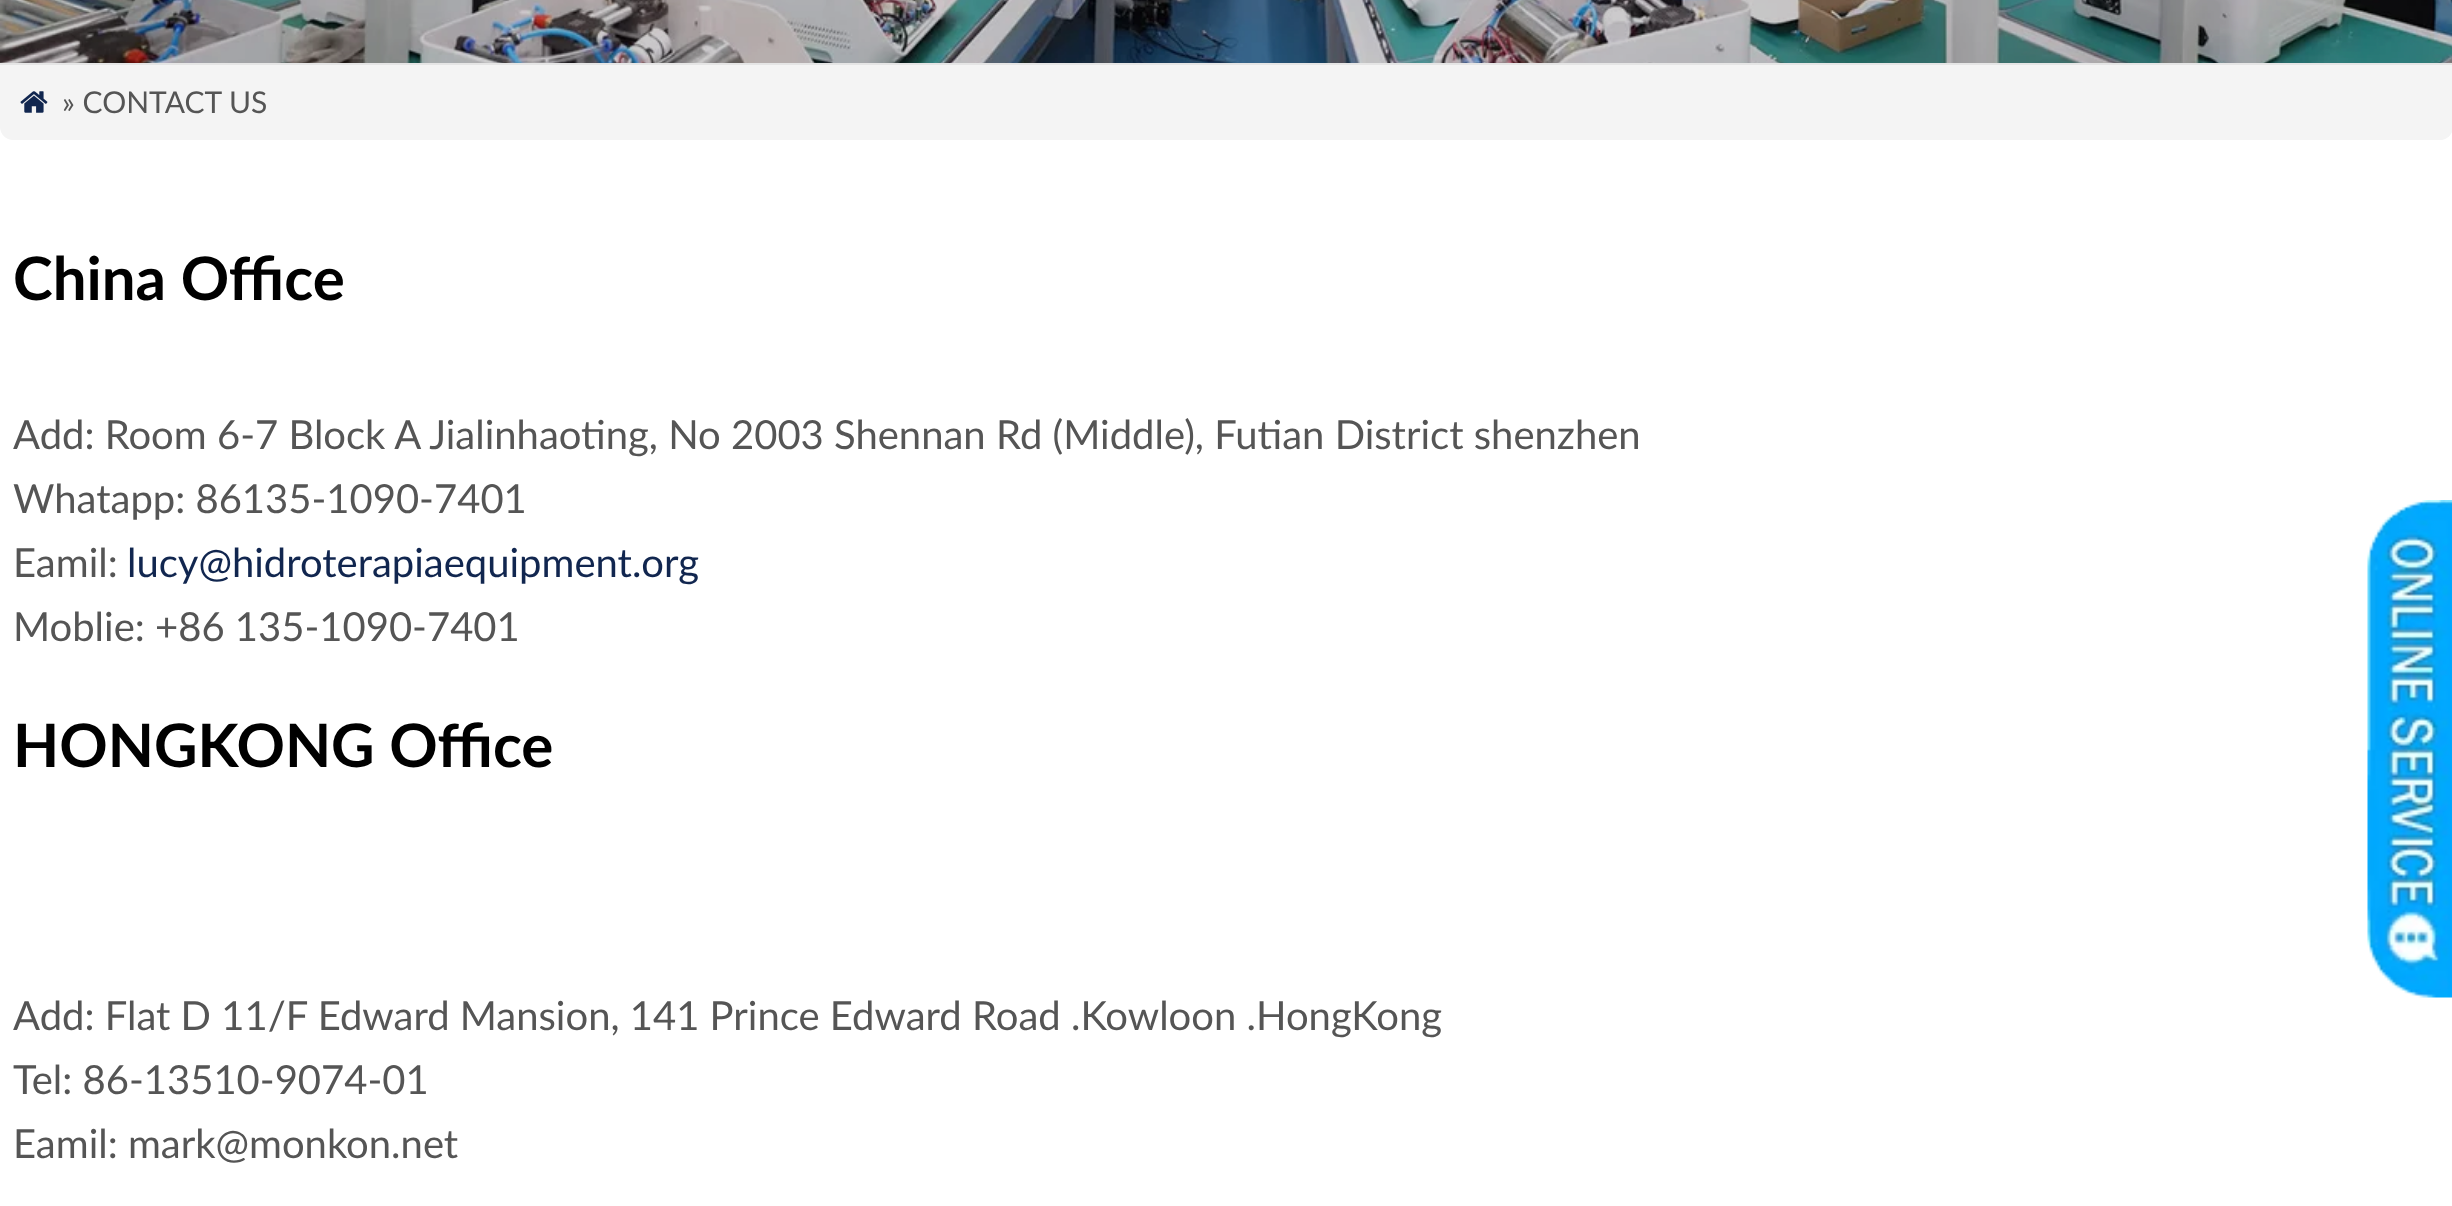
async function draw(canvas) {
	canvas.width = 2452;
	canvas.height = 1206;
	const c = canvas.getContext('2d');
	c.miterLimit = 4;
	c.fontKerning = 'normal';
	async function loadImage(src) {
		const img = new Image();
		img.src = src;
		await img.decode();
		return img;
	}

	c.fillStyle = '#fff';
	c.fillRect(0, 0, 2452, 1206);
	c.drawImage(await loadImage('img1.png'), 0, 0, 2452, 63);
	c.fillStyle = '#e5e5e5';
	c.fillRect(0, 63, 2452, 2);
	c.fillStyle = '#f4f4f4';
	c.beginPath();
	c.moveTo(0, 65);
	c.lineTo(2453, 65);
	c.lineTo(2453, 127);
	c.bezierCurveTo(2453, 134, 2447, 140, 2440, 140);
	c.lineTo(13, 140);
	c.bezierCurveTo(6, 140, 0, 134, 0, 127);
	c.closePath();
	c.fill();
	c.drawImage(await loadImage('img2.png'), 20, 91, 28, 22);
	c.font = '30px Lato';
	c.fillStyle = '#555';
	c.fillText('» CONTACT US', 62, 113);
	c.font = 'bold 60px Lato';
	c.fillStyle = '#000';
	c.fillText('China Office', 13, 300);
	c.font = '40px Lato';
	c.fillStyle = '#555';
	for (const [text, x, y] of [
		['Add: Room 6-7 Block A Jialinhaoting, No 2003 Shennan Rd (Middle), Futian District shenzhen', 13, 449],
		['Whatapp: 86135-1090-7401', 13, 513],
		['Eamil:', 13, 577],
	]) {
		c.fillText(text, x, y);
	}
	c.fillStyle = '#11264f';
	c.fillText('lucy@hidroterapiaequipment.org', 127, 577);
	c.fillStyle = '#555';
	c.fillText('Moblie: +86 135-1090-7401', 13, 641);
	c.font = 'bold 60px Lato';
	c.fillStyle = '#000';
	c.fillText('HONGKONG Office', 13, 767);
	c.font = '40px Lato';
	c.fillStyle = '#555';
	for (const [text, x, y] of [
		['Add: Flat D 11/F Edward Mansion, 141 Prince Edward Road .Kowloon .HongKong', 13, 1030],
		['Tel: 86-13510-9074-01', 13, 1094],
		['Eamil: mark@monkon.net', 13, 1158],
	]) {
		c.fillText(text, x, y);
	}
	c.drawImage(await loadImage('img3.png'), 2367, 500, 85, 498);
}

draw(document.querySelector('canvas'));
